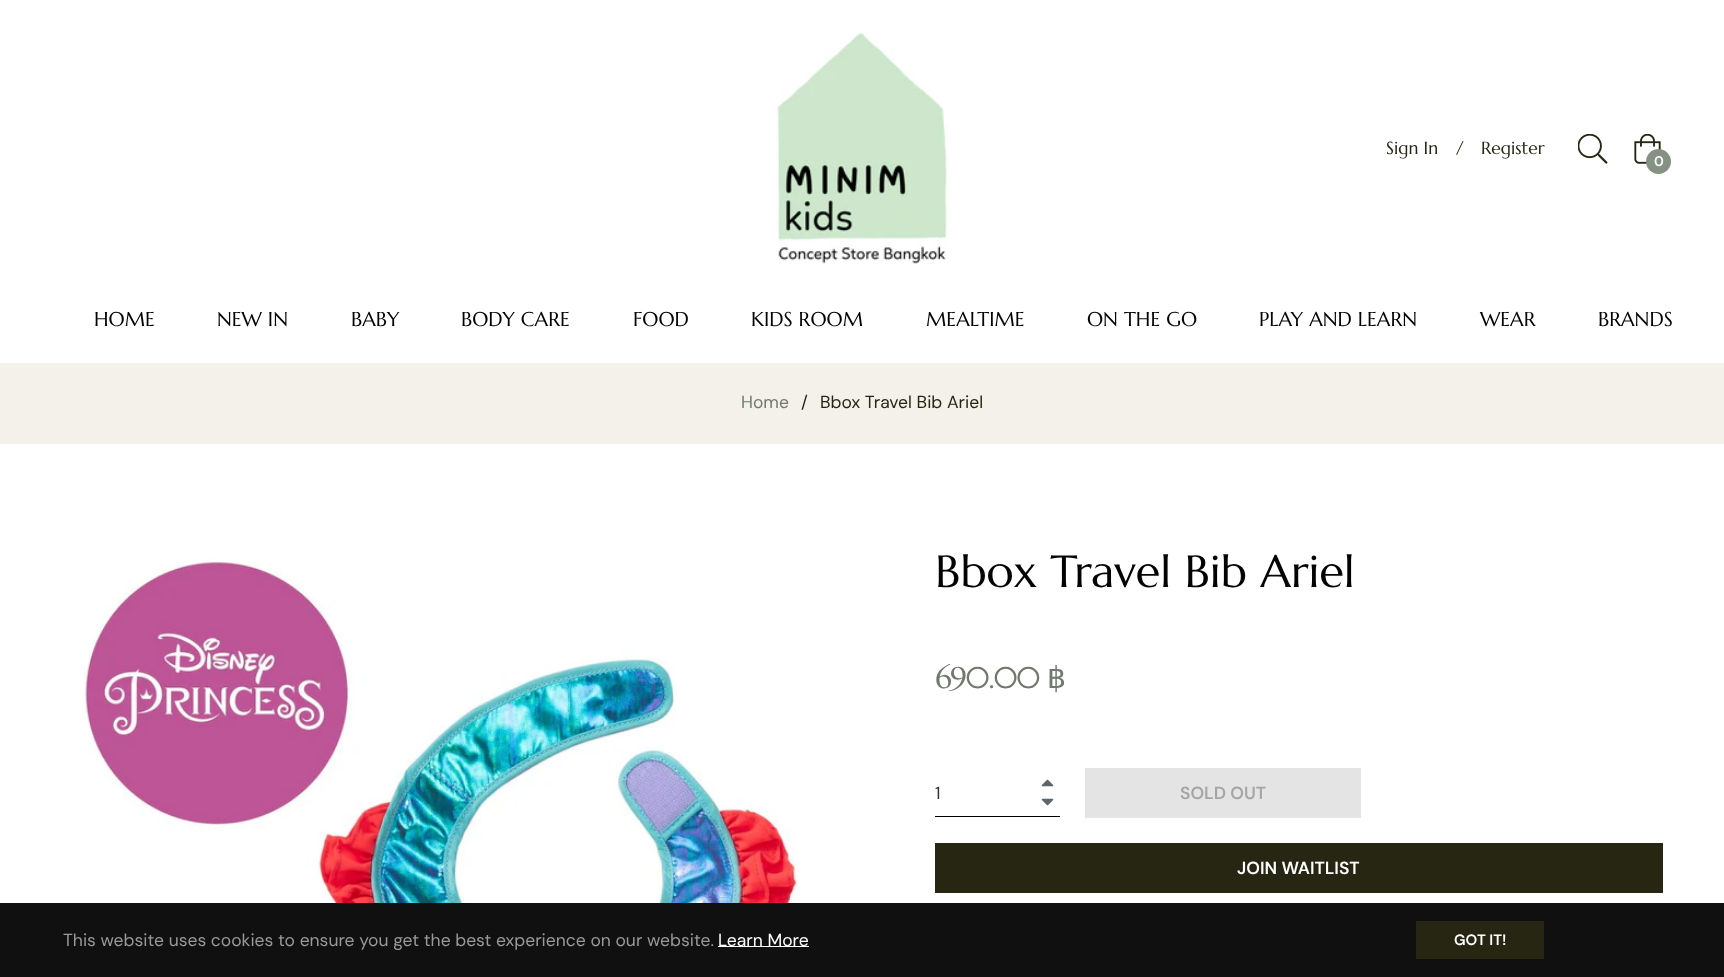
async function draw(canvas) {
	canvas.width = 1724;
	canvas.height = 977;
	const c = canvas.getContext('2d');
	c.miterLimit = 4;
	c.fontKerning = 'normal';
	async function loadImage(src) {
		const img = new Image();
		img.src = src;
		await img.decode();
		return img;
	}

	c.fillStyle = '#fff';
	c.fillRect(0, 0, 1724, 977);
	c.drawImage(await loadImage('img1.png'), 776, 32, 173, 232);
	c.font = '17.5px Marcellus';
	c.fillStyle = '#262613';
	for (const [text, x, y] of [
		['Sign In', 1386, 154],
		['/', 1456, 154],
		['Register', 1481, 154],
	]) {
		c.fillText(text, x, y);
	}
	c.drawImage(await loadImage('img2.png'), 1578, 134, 30, 30);
	c.drawImage(await loadImage('img3.png'), 1634, 134, 27, 30);
	c.fillStyle = '#859182';
	c.beginPath();
	c.arc(1658.5, 161.5, 12.5, 0, 2 * Math.PI);
	c.fill();
	c.font = '600 14px DM Sans';
	c.fillStyle = '#fff';
	c.fillText('0', 1654, 166);
	c.font = '20px Marcellus';
	c.fillStyle = '#030303';
	for (const [text, x, y] of [
		['HOME', 94, 326],
		['NEW IN', 217, 326],
		['BABY', 351, 326],
		['BODY CARE', 461, 326],
		['FOOD', 633, 326],
		['KIDS ROOM', 751, 326],
		['MEALTIME', 926, 326],
		['ON THE GO', 1087, 326],
		['PLAY AND LEARN', 1259, 326],
		['WEAR', 1480, 326],
		['BRANDS', 1598, 326],
	]) {
		c.fillText(text, x, y);
	}
	c.fillStyle = '#f4f1eb';
	c.fillRect(0, 363, 1724, 81);
	c.font = '17.5px DM Sans';
	c.fillStyle = '#6f7a6c';
	c.fillText('Home', 741, 408);
	c.fillStyle = '#262613';
	c.fillText('/', 801, 408);
	c.fillText('Bbox Travel Bib Ariel', 820, 408);
	c.drawImage(await loadImage('img4.png'), 82, 559, 716, 344);
	c.font = '45px Marcellus';
	c.fillStyle = '#030303';
	c.fillText('Bbox Travel Bib Ariel', 935, 587);
	c.letterSpacing = '-1.25px';
	c.font = '30px Marcellus';
	c.fillStyle = '#6f7a6c';
	c.fillText('690.00', 935, 688);
	c.font = '30px DejaVu Sans';
	c.fillText('฿', 1047, 688);
	c.drawImage(await loadImage('img5.png'), 1041, 779, 13, 8);
	c.fillStyle = '#000';
	c.fillRect(935, 816, 125, 1);
	c.letterSpacing = '0px';
	c.font = '17.5px DM Sans';
	c.fillStyle = '#333';
	c.fillText('1', 935, 799);
	c.drawImage(await loadImage('img6.png'), 1041, 798, 13, 8);
	c.fillStyle = '#e4e4e4';
	c.fillRect(1085, 768, 276, 50);
	c.font = '600 17.5px DM Sans';
	c.fillStyle = '#a5a5a5';
	c.fillText('SOLD OUT', 1180, 799);
	c.fillStyle = '#262613';
	c.fillRect(935, 843, 728, 50);
	c.fillStyle = '#fff';
	c.fillText('JOIN WAITLIST', 1237, 874);
	c.fillStyle = '#101010';
	c.fillRect(0, 903, 1724, 74);
	c.font = '17.5px DM Sans';
	c.fillStyle = '#999';
	c.fillText('This website uses cookies to ensure you get the best experience on our website.', 63, 946);
	c.fillStyle = '#fff';
	c.fillRect(718, 946, 91, 1);
	c.fillText('Learn More', 718, 946);
	c.fillStyle = '#262613';
	c.fillRect(1416, 921, 128, 38);
	c.font = '600 15px DM Sans';
	c.fillStyle = '#fff';
	c.fillText('GOT IT!', 1454, 945);
}

draw(document.querySelector('canvas'));
